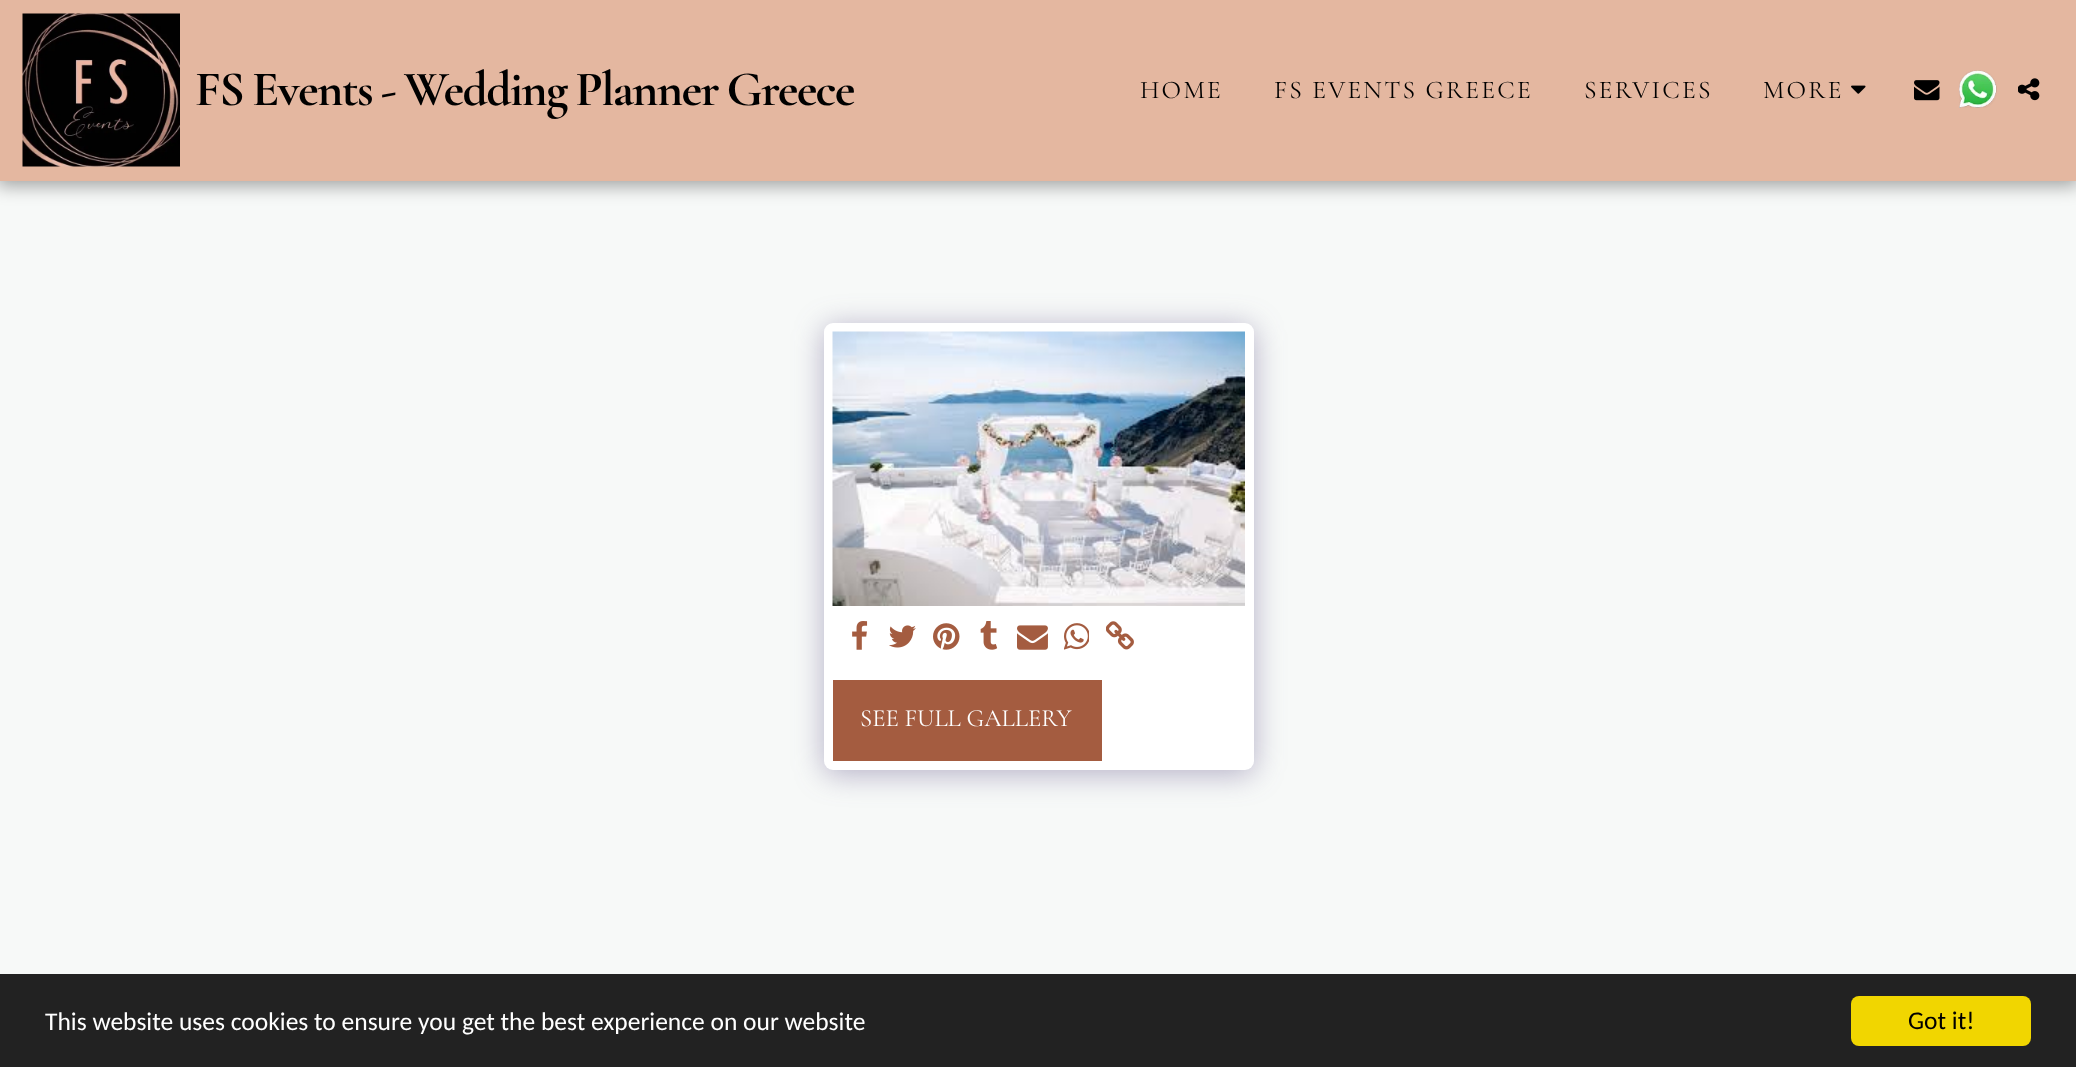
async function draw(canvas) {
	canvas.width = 2076;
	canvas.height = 1067;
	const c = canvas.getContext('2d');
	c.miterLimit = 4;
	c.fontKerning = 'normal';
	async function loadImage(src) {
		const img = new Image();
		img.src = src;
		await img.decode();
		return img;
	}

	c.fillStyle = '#f7f9f8';
	c.fillRect(0, 0, 2076, 1067);
	c.fillStyle = '#00000059';
	c.filter = 'blur(9px)';
	c.beginPath();
	c.rect(-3, 0, 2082, 186);
	c.fill();
	c.filter = 'none';
	c.fillStyle = '#e4b7a0';
	c.fillRect(0, 0, 2076, 181);
	c.drawImage(await loadImage('img1.png'), 22, 13, 158, 154);
	c.letterSpacing = '-1.5px';
	c.wordSpacing = '-1.5px';
	c.font = 'bold 49.5px Cormorant Garamond';
	c.fillStyle = '#000';
	c.fillText('FS Events - Wedding Planner Greece', 195, 105);
	c.letterSpacing = '2.25px';
	c.wordSpacing = '0px';
	c.font = '25.5px Cormorant Garamond';
	for (const [text, x, y] of [
		['HOME', 1140, 98],
		['FS EVENTS GREECE', 1274, 98],
		['SERVICES', 1584, 98],
		['MORE', 1763, 98],
	]) {
		c.fillText(text, x, y);
	}
	c.drawImage(await loadImage('img2.png'), 1851, 85, 15, 9);
	c.drawImage(await loadImage('img3.png'), 1914, 80, 26, 21);
	c.drawImage(await loadImage('img4.png'), 1959, 70, 38, 38);
	c.drawImage(await loadImage('img5.png'), 2018, 78, 22, 23);
	c.fillStyle = '#4d3f7a66';
	c.filter = 'blur(15px)';
	c.beginPath();
	c.roundRect(824, 327, 430, 447, 9);
	c.fill();
	c.filter = 'none';
	c.fillStyle = '#fff';
	c.beginPath();
	c.roundRect(824, 323, 430, 447, 9);
	c.fill();
	c.drawImage(await loadImage('img6.png'), 832, 331, 413, 275);
	c.drawImage(await loadImage('img7.png'), 852, 621, 16, 29);
	c.drawImage(await loadImage('img8.png'), 889, 625, 27, 23);
	c.drawImage(await loadImage('img9.png'), 933, 623, 27, 27);
	c.drawImage(await loadImage('img10.png'), 980, 621, 18, 29);
	c.drawImage(await loadImage('img11.png'), 1017, 625, 31, 25);
	c.drawImage(await loadImage('img12.png'), 1064, 623, 25, 27);
	c.drawImage(await loadImage('img13.png'), 1106, 621, 28, 29);
	for (const [x, y, w, h, color] of [
		[835, 682, 265, 74, '#a45c40'],
		[833, 680, 268, 2, '#a45c40'],
		[1100, 680, 2, 81, '#a45c40'],
		[833, 756, 268, 5, '#a45c40'],
		[833, 680, 2, 81, '#a45c40'],
	]) {
		c.fillStyle = color;
		c.fillRect(x, y, w, h);
	}
	c.letterSpacing = '0px';
	c.font = '24.75px Cormorant Garamond';
	c.fillStyle = '#fff';
	c.fillText('SEE FULL GALLERY', 860, 726);
	c.fillStyle = '#222';
	c.fillRect(0, 974, 2076, 93);
	c.font = '25.5px Carlito';
	c.fillStyle = '#fff';
	c.fillText('This website uses cookies to ensure you get the best experience on our website', 45, 1030);
	c.fillStyle = '#f1d600';
	c.beginPath();
	c.roundRect(1851, 996, 180, 50, 8);
	c.fill();
	c.fillStyle = '#000';
	c.fillText('Got it!', 1908, 1029);
}

draw(document.querySelector('canvas'));
